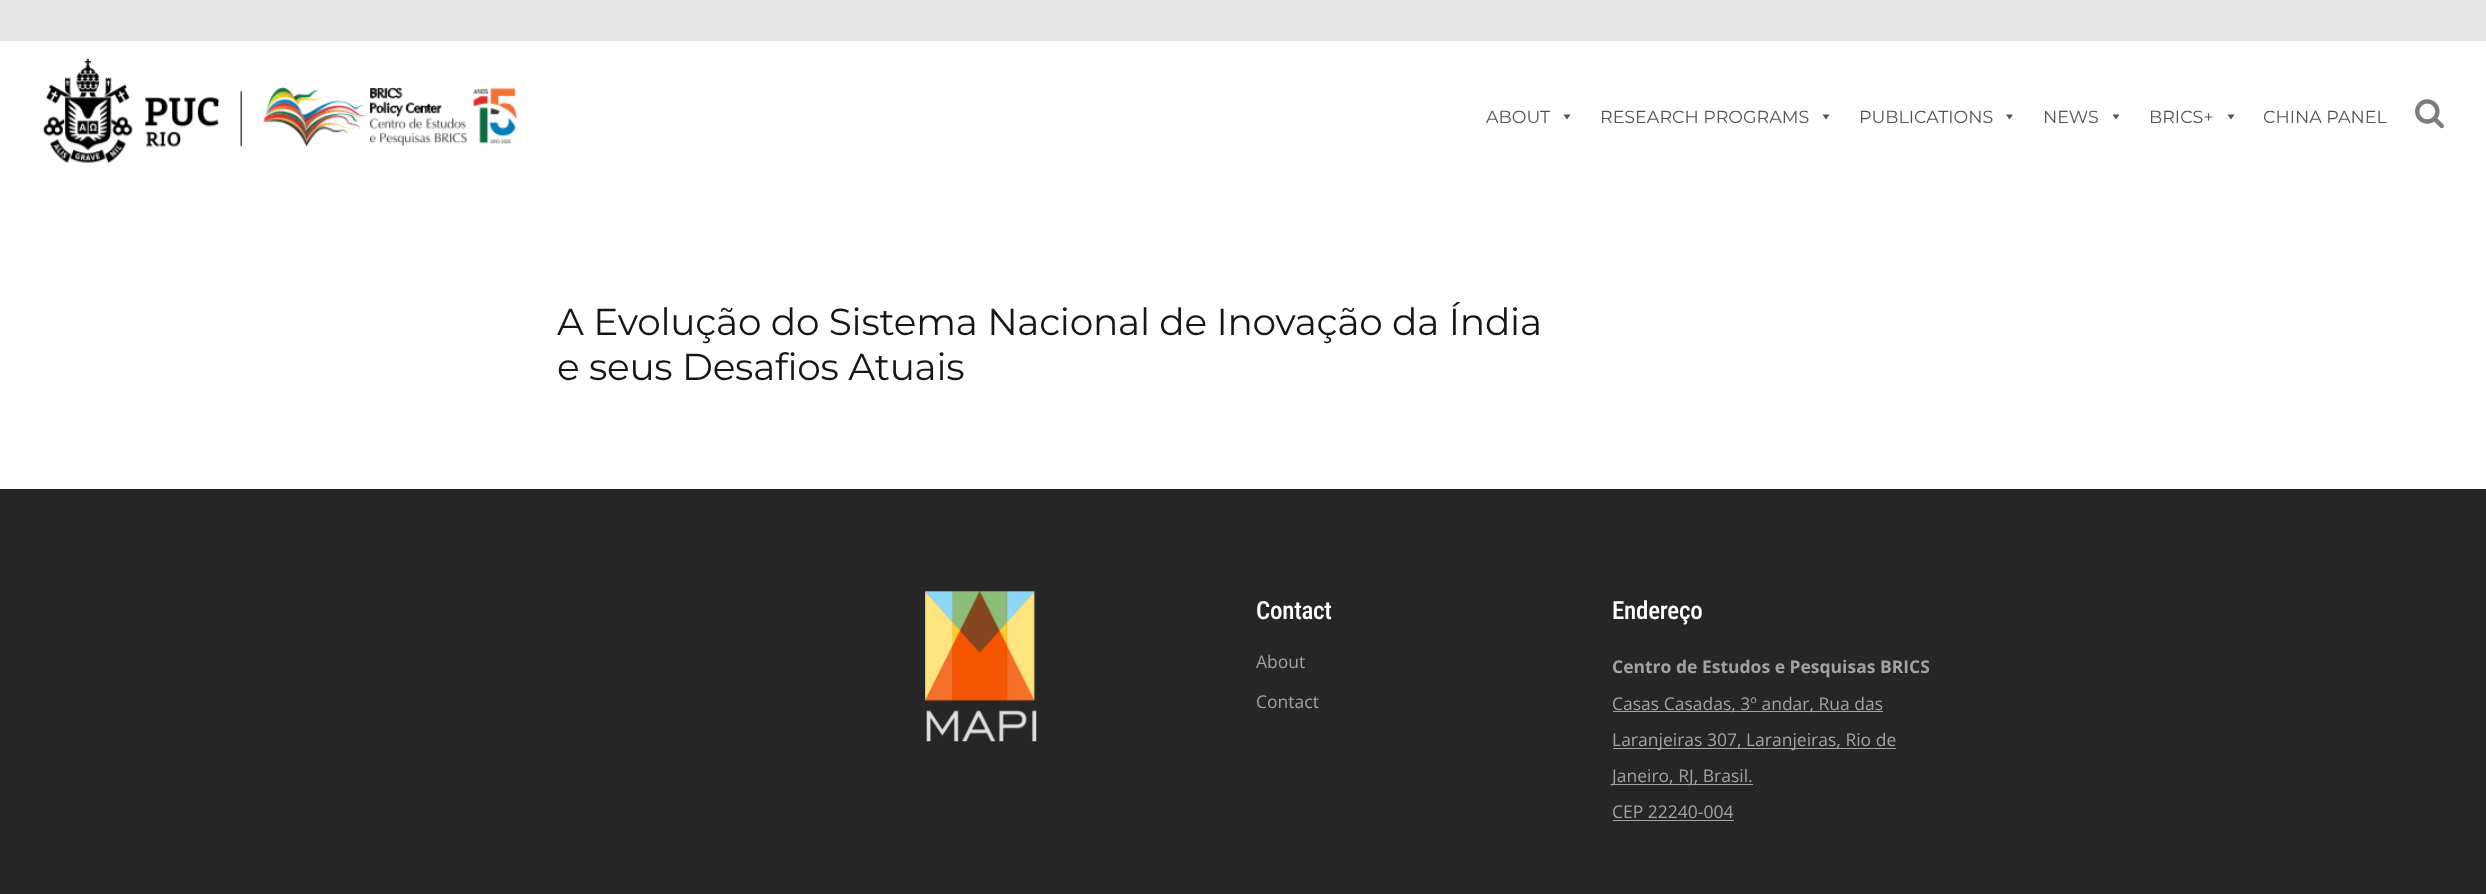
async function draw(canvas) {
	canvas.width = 2486;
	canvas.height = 894;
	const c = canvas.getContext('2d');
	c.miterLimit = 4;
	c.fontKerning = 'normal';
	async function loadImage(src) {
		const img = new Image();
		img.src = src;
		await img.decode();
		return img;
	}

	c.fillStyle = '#fff';
	c.fillRect(0, 0, 2486, 894);
	c.fillStyle = '#e5e5e5';
	c.fillRect(0, 0, 2486, 41);
	c.drawImage(await loadImage('img1.png'), 43, 58, 474, 105);
	c.font = '17.5px Montserrat';
	c.fillStyle = '#545454';
	c.fillText('ABOUT', 1486, 123);
	c.beginPath();
	c.moveTo(1570.5, 114.5);
	c.lineTo(1567, 119.5);
	c.lineTo(1563.5, 114.5);
	c.closePath();
	c.fill();
	c.fillText('RESEARCH PROGRAMS', 1600, 123);
	c.beginPath();
	c.moveTo(1829.5, 114.5);
	c.lineTo(1826, 119.5);
	c.lineTo(1822.5, 114.5);
	c.closePath();
	c.fill();
	c.fillText('PUBLICATIONS', 1859, 123);
	c.beginPath();
	c.moveTo(2013, 114.5);
	c.lineTo(2009.5, 119.5);
	c.lineTo(2006, 114.5);
	c.closePath();
	c.fill();
	c.fillText('NEWS', 2043, 123);
	c.beginPath();
	c.moveTo(2119.5, 114.5);
	c.lineTo(2116, 119.5);
	c.lineTo(2112.5, 114.5);
	c.closePath();
	c.fill();
	c.fillText('BRICS+', 2149, 123);
	c.beginPath();
	c.moveTo(2234.5, 114.5);
	c.lineTo(2231, 119.5);
	c.lineTo(2227.5, 114.5);
	c.closePath();
	c.fill();
	c.fillText('CHINA PANEL', 2263, 123);
	c.drawImage(await loadImage('img2.png'), 2415, 99, 29, 30);
	c.letterSpacing = '-0.25px';
	c.font = '37.5px Montserrat';
	c.fillStyle = '#161616';
	c.fillText('A Evolução do Sistema Nacional de Inovação da Índia', 557, 335);
	c.fillText('e seus Desafios Atuais', 557, 380);
	c.fillStyle = '#262626';
	c.fillRect(0, 489, 2486, 405);
	c.drawImage(await loadImage('img3.png'), 925, 591, 112, 151);
	c.font = '500 25px Roboto Condensed';
	c.fillStyle = '#fff';
	c.fillText('Contact', 1256, 619);
	c.letterSpacing = '0px';
	c.font = '17.5px Open Sans';
	c.fillStyle = '#a2a2a2';
	c.fillText('About', 1256, 668);
	c.fillText('Contact', 1256, 708);
	c.letterSpacing = '-0.25px';
	c.font = '500 25px Roboto Condensed';
	c.fillStyle = '#fff';
	c.fillText('Endereço', 1612, 619);
	c.letterSpacing = '0px';
	c.font = 'bold 17.5px Open Sans';
	c.fillStyle = '#a2a2a2';
	c.fillText('Centro de Estudos e Pesquisas BRICS', 1612, 673);
	c.fillRect(1613, 711, 270, 1);
	c.font = '17.5px Open Sans';
	c.fillText('Casas Casadas, 3º andar, Rua das', 1612, 710);
	c.fillRect(1613, 748, 283, 1);
	c.fillText('Laranjeiras 307, Laranjeiras, Rio de', 1612, 746);
	c.fillRect(1613, 784, 140, 1);
	c.fillText('Janeiro, RJ, Brasil.', 1612, 782);
	c.fillText('CEP 22240-004', 1612, 818);
	c.fillRect(1613, 820, 121, 1);
}

draw(document.querySelector('canvas'));
